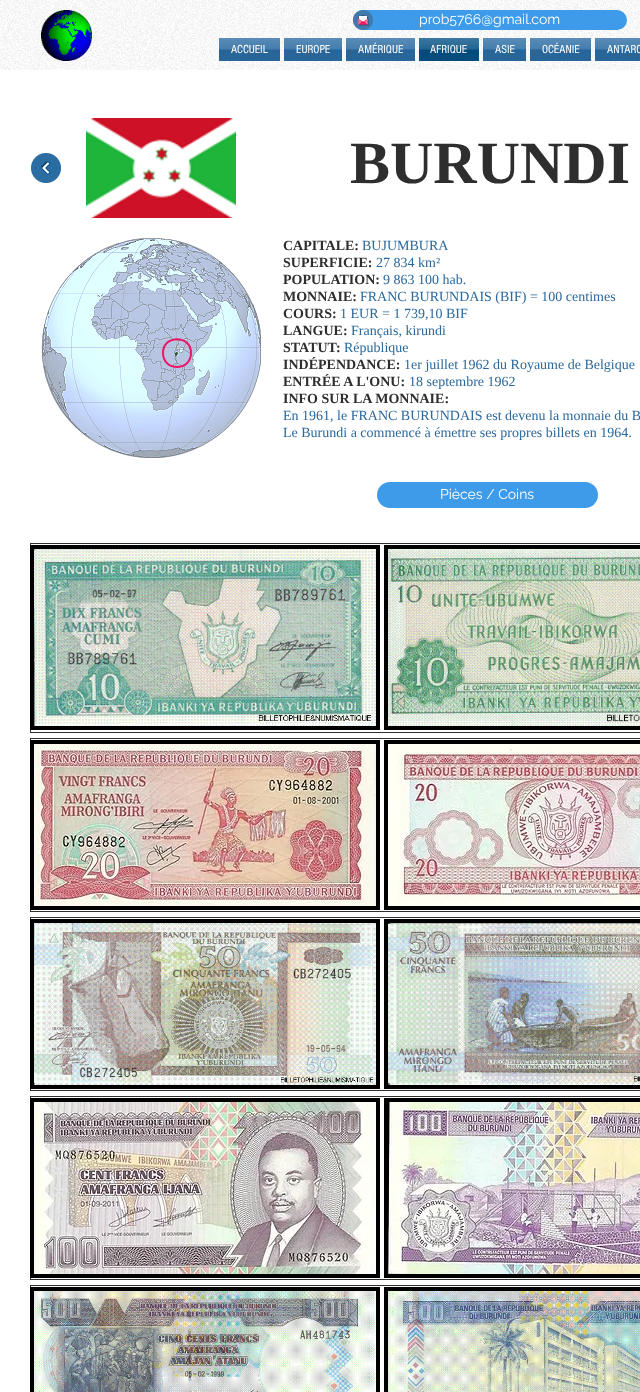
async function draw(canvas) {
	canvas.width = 640;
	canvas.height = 1392;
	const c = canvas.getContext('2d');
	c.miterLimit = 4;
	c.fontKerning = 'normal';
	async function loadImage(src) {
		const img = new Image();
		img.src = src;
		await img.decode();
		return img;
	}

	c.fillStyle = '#fff';
	c.fillRect(0, 0, 640, 1392);
	c.drawImage(await loadImage('img1.png'), 0, 0, 640, 70);
	c.drawImage(await loadImage('img2.png'), 41, 10, 51, 51);
	c.fillStyle = '#3d9be9';
	c.beginPath();
	c.roundRect(353, 10, 274, 20, 10);
	c.fill();
	c.drawImage(await loadImage('img3.png'), 353, 10, 20, 20);
	c.font = '14px Raleway';
	c.fillStyle = '#fff';
	c.fillText('prob5766@gmail.com', 419, 24);
	c.fillStyle = '#2b6ca3';
	c.fillRect(219, 38, 61, 23);
	c.drawImage(await loadImage('img4.png'), 219, 38, 61, 23);
	c.font = '12px "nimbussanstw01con"';
	c.fillStyle = '#fff';
	c.fillText('ACCUEIL', 231, 53);
	c.fillStyle = '#2b6ca3';
	c.fillRect(284, 38, 58, 23);
	c.drawImage(await loadImage('img5.png'), 284, 38, 58, 23);
	c.fillStyle = '#fff';
	c.fillText('EUROPE', 296, 53);
	c.fillStyle = '#2b6ca3';
	c.fillRect(346, 38, 69, 23);
	c.drawImage(await loadImage('img6.png'), 346, 38, 69, 23);
	c.fillStyle = '#fff';
	c.fillText('AMÉRIQUE', 358, 53);
	c.fillStyle = '#045184';
	c.fillRect(419, 38, 60, 23);
	c.drawImage(await loadImage('img7.png'), 419, 38, 60, 23);
	c.fillStyle = '#fff';
	c.fillText('AFRIQUE', 430, 53);
	c.fillStyle = '#2b6ca3';
	c.fillRect(483, 38, 43, 23);
	c.drawImage(await loadImage('img8.png'), 483, 38, 43, 23);
	c.fillStyle = '#fff';
	c.fillText('ASIE', 495, 53);
	c.fillStyle = '#2b6ca3';
	c.fillRect(530, 38, 61, 23);
	c.drawImage(await loadImage('img4.png'), 530, 38, 61, 23);
	c.fillStyle = '#fff';
	c.fillText('OCÉANIE', 542, 53);
	c.fillStyle = '#2b6ca3';
	c.fillRect(595, 38, 45, 23);
	c.drawImage(await loadImage('img9.png'), 595, 38, 45, 23);
	c.fillStyle = '#fff';
	c.fillText('ANTARC', 607, 53);
	c.drawImage(await loadImage('img10.png'), 31, 153, 30, 30);
	c.drawImage(await loadImage('img11.png'), 86, 118, 150, 100);
	c.font = 'bold 60px Liberation Serif';
	c.fillStyle = '#2f2e2e';
	c.fillText('BURUNDI', 350, 183);
	c.drawImage(await loadImage('img12.png'), 41, 238, 220, 220);
	c.font = 'bold 14px Liberation Serif';
	c.fillText('CAPITALE:', 283, 250);
	c.font = '14px Liberation Serif';
	c.fillStyle = '#2b689c';
	c.fillText('BUJUMBURA', 362, 250);
	c.font = 'bold 14px Liberation Serif';
	c.fillStyle = '#2f2e2e';
	c.fillText('SUPERFICIE:', 283, 267);
	c.font = '14px Liberation Serif';
	c.fillStyle = '#2b689c';
	c.fillText('27 834 km²', 376, 267);
	c.font = 'bold 14px Liberation Serif';
	c.fillStyle = '#2f2e2e';
	c.fillText('POPULATION:', 283, 284);
	c.font = '14px Liberation Serif';
	c.fillStyle = '#2b689c';
	c.fillText('9 863 100 hab.', 383, 284);
	c.font = 'bold 14px Liberation Serif';
	c.fillStyle = '#2f2e2e';
	c.fillText('MONNAIE:', 283, 301);
	c.font = '14px Liberation Serif';
	c.fillStyle = '#2b689c';
	c.fillText('FRANC BURUNDAIS (BIF) = 100 centimes', 360, 301);
	c.font = 'bold 14px Liberation Serif';
	c.fillStyle = '#2f2e2e';
	c.fillText('COURS:', 283, 318);
	c.font = '14px Liberation Serif';
	c.fillStyle = '#2b689c';
	c.fillText('1 EUR = 1 739,10 BIF', 340, 318);
	c.font = 'bold 14px Liberation Serif';
	c.fillStyle = '#2f2e2e';
	c.fillText('LANGUE:', 283, 335);
	c.font = '14px Liberation Serif';
	c.fillStyle = '#2b689c';
	c.fillText('Français, kirundi', 351, 335);
	c.font = 'bold 14px Liberation Serif';
	c.fillStyle = '#2f2e2e';
	c.fillText('STATUT:', 283, 352);
	c.font = '14px Liberation Serif';
	c.fillStyle = '#2b689c';
	c.fillText('République', 344, 352);
	c.font = 'bold 14px Liberation Serif';
	c.fillStyle = '#2f2e2e';
	c.fillText('INDÉPENDANCE:', 283, 369);
	c.font = '14px Liberation Serif';
	c.fillStyle = '#2b689c';
	c.fillText('1er juillet 1962 du Royaume de Belgique', 404, 369);
	c.font = 'bold 14px Liberation Serif';
	c.fillStyle = '#2f2e2e';
	c.fillText('ENTRÉE A L\'ONU:', 283, 386);
	c.font = '14px Liberation Serif';
	c.fillStyle = '#2b689c';
	c.fillText('18 septembre 1962', 409, 386);
	c.font = 'bold 14px Liberation Serif';
	c.fillStyle = '#2f2e2e';
	c.fillText('INFO SUR LA MONNAIE:', 283, 403);
	c.font = '14px Liberation Serif';
	c.fillStyle = '#2b689c';
	c.fillText('En 1961, le FRANC BURUNDAIS est devenu la monnaie du B', 283, 420);
	c.fillText('Le Burundi a commencé à émettre ses propres billets en 1964.', 283, 437);
	c.beginPath();
	c.moveTo(191, 353);
	c.bezierCurveTo(191, 371.5, 163, 371.5, 163, 353);
	c.bezierCurveTo(163, 334.5, 191, 334.5, 191, 353);
	c.closePath();
	c.strokeStyle = '#ed1566';
	c.lineWidth = 2;
	c.stroke();
	c.fillStyle = '#3d9be9';
	c.beginPath();
	c.roundRect(377, 482, 221, 26, 13);
	c.fill();
	c.font = '14px Raleway';
	c.fillStyle = '#fff';
	c.fillText('Pièces / Coins', 440, 499);
	c.strokeStyle = '#2f2e2e';
	c.lineWidth = 1;
	c.strokeRect(30.5, 543.5, 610, 189);
	c.fillStyle = '#000';
	c.fillRect(30, 545, 350, 185);
	c.drawImage(await loadImage('img13.png'), 34, 549, 342, 177);
	c.fillRect(384, 545, 256, 185);
	c.drawImage(await loadImage('img14.png'), 388, 549, 252, 177);
	c.strokeRect(30.5, 738.5, 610, 173);
	c.fillRect(30, 740, 350, 170);
	c.drawImage(await loadImage('img15.png'), 34, 744, 342, 162);
	c.fillRect(384, 740, 256, 170);
	c.drawImage(await loadImage('img16.png'), 388, 744, 252, 162);
	c.strokeRect(30.5, 917.5, 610, 173);
	c.fillRect(30, 919, 350, 170);
	c.drawImage(await loadImage('img17.png'), 34, 923, 342, 162);
	c.fillRect(384, 919, 256, 170);
	c.drawImage(await loadImage('img18.png'), 388, 923, 252, 162);
	c.strokeRect(30.5, 1096.5, 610, 183);
	c.fillRect(30, 1098, 350, 180);
	c.drawImage(await loadImage('img19.png'), 34, 1102, 342, 172);
	c.fillRect(384, 1098, 256, 180);
	c.drawImage(await loadImage('img20.png'), 388, 1102, 252, 172);
	c.strokeRect(30.5, 1285.5, 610, 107);
	c.fillRect(30, 1287, 350, 105);
	c.drawImage(await loadImage('img21.png'), 34, 1291, 342, 101);
	c.fillRect(384, 1287, 256, 105);
	c.drawImage(await loadImage('img22.png'), 388, 1291, 252, 101);
}

draw(document.querySelector('canvas'));
